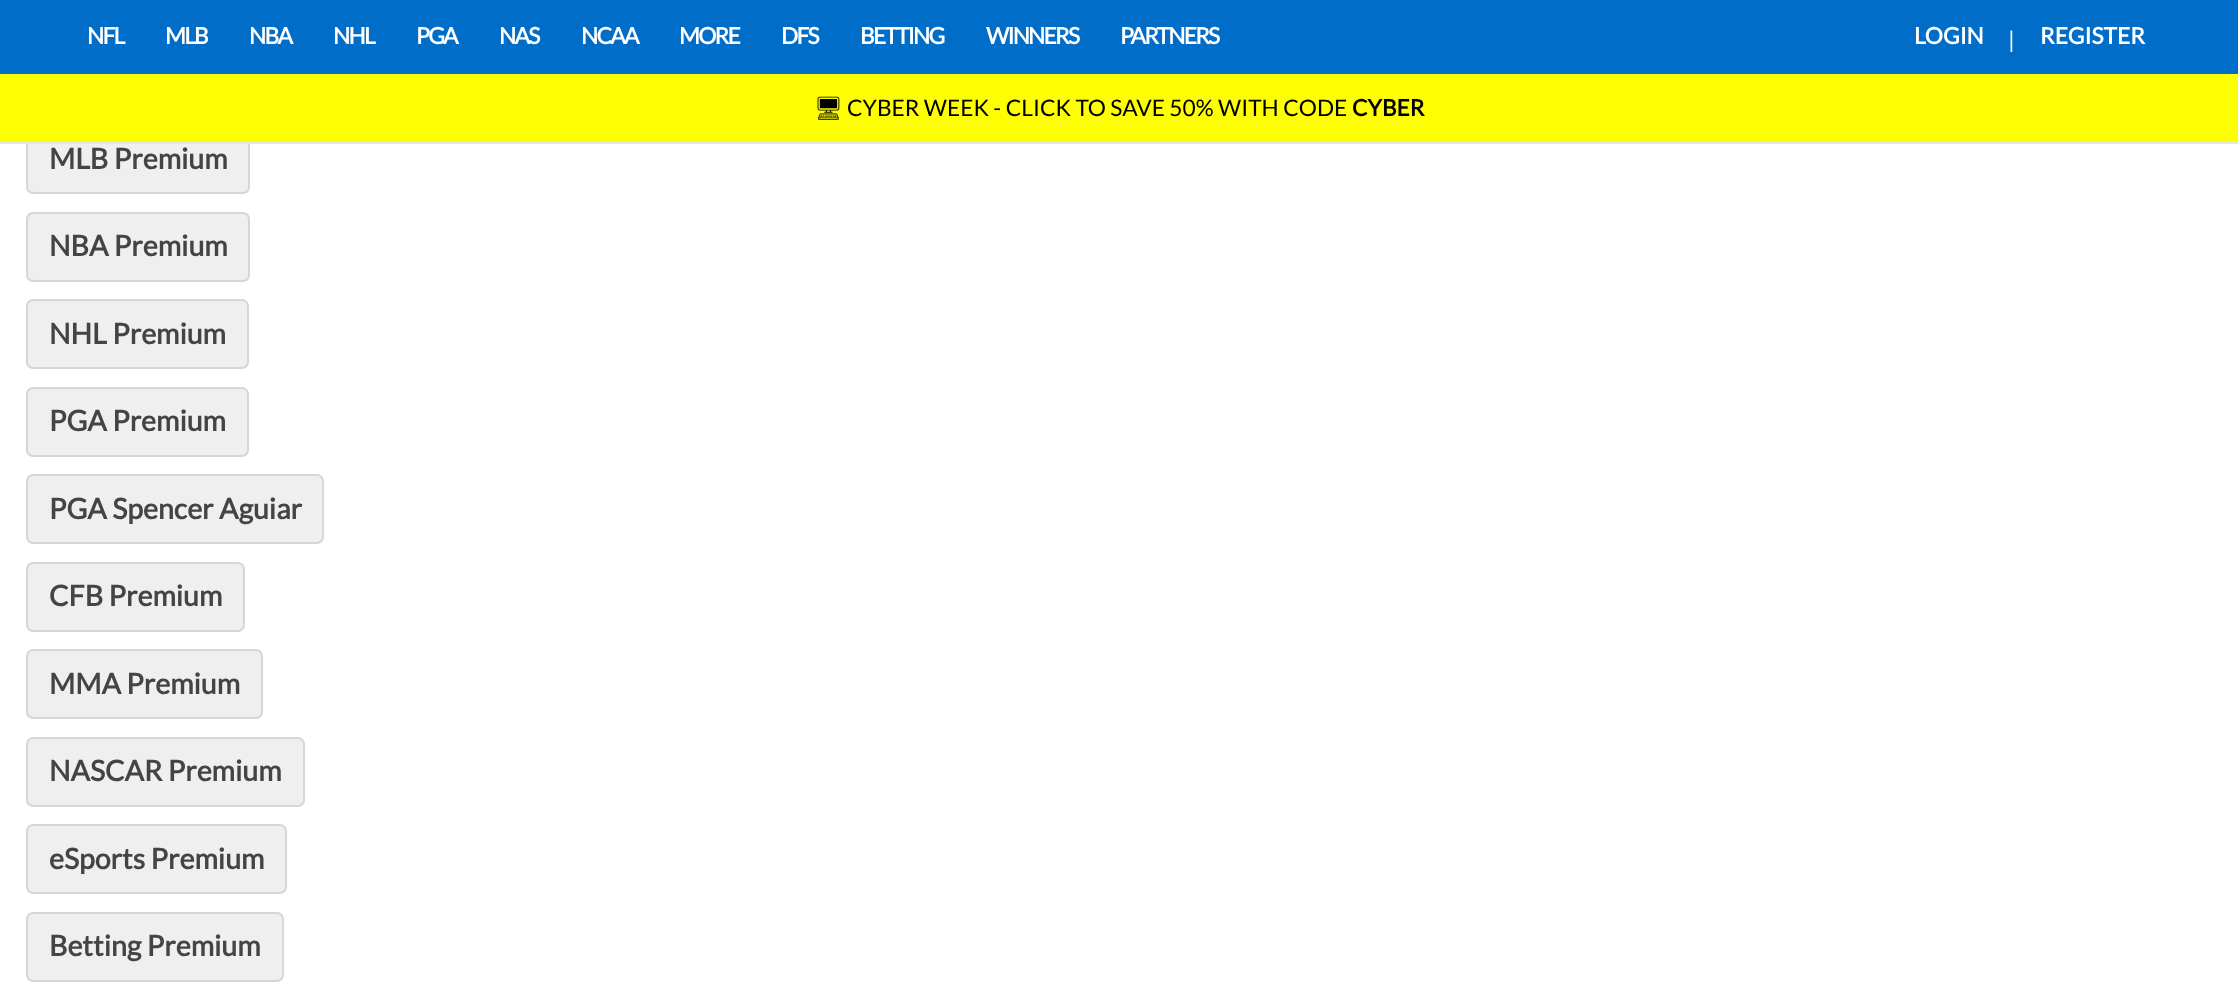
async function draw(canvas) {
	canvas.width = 2238;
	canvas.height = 995;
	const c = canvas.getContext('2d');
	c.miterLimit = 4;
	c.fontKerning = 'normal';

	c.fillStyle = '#fff';
	c.fillRect(0, 0, 2238, 995);
	c.fillStyle = '#006dc8';
	c.fillRect(0, 0, 2238, 74);
	c.letterSpacing = '-1.75px';
	c.font = 'bold 22.75px Lato';
	c.fillStyle = '#fff';
	for (const [text, x, y] of [
		['NFL', 87, 44],
		['MLB', 165, 44],
		['NBA', 249, 44],
		['NHL', 333, 44],
		['PGA', 416, 44],
		['NAS', 499, 44],
		['NCAA', 581, 44],
		['MORE', 679, 44],
		['DFS', 781, 44],
		['BETTING', 860, 44],
		['WINNERS', 986, 44],
		['PARTNERS', 1120, 44],
	]) {
		c.fillText(text, x, y);
	}
	c.letterSpacing = '0px';
	c.fillText('LOGIN', 1914, 44);
	c.font = '22.75px Lato';
	c.fillText('|', 2008, 48);
	c.font = 'bold 22.75px Lato';
	c.fillText('REGISTER', 2040, 44);
	c.fillStyle = '#efefef';
	c.beginPath();
	c.roundRect(27, 125, 222, 68, 6);
	c.fill();
	c.strokeStyle = '#d6d6d6';
	c.lineWidth = 2;
	c.stroke();
	c.fillStyle = '#fdfd03';
	c.fillRect(0, 74, 2238, 68);
	c.fillStyle = '#e6e6e6';
	c.fillRect(0, 142, 2238, 2);
	c.font = '22.75px Noto Emoji';
	c.fillStyle = '#000';
	c.fillText('🖥', 814, 116);
	c.font = '22.75px Lato';
	c.fillText('CYBER WEEK - CLICK TO SAVE 50% WITH CODE', 847, 116);
	c.font = 'bold 22.75px Lato';
	c.fillText('CYBER', 1352, 116);
	c.font = 'bold 28.5px Lato';
	c.fillStyle = '#444';
	c.fillText('MLB Premium', 49, 169);
	c.fillStyle = '#efefef';
	c.beginPath();
	c.roundRect(27, 213, 222, 68, 6);
	c.fill();
	c.stroke();
	c.fillStyle = '#444';
	c.fillText('NBA Premium', 49, 256);
	c.fillStyle = '#efefef';
	c.beginPath();
	c.roundRect(27, 300, 221, 68, 6);
	c.fill();
	c.stroke();
	c.fillStyle = '#444';
	c.fillText('NHL Premium', 49, 344);
	c.fillStyle = '#efefef';
	c.beginPath();
	c.roundRect(27, 388, 221, 68, 6);
	c.fill();
	c.stroke();
	c.fillStyle = '#444';
	c.fillText('PGA Premium', 49, 431);
	c.fillStyle = '#efefef';
	c.beginPath();
	c.roundRect(27, 475, 296, 68, 6);
	c.fill();
	c.stroke();
	c.fillStyle = '#444';
	c.fillText('PGA Spencer Aguiar', 49, 519);
	c.fillStyle = '#efefef';
	c.beginPath();
	c.roundRect(27, 563, 217, 68, 6);
	c.fill();
	c.stroke();
	c.fillStyle = '#444';
	c.fillText('CFB Premium', 49, 606);
	c.fillStyle = '#efefef';
	c.beginPath();
	c.roundRect(27, 650, 235, 68, 6);
	c.fill();
	c.stroke();
	c.fillStyle = '#444';
	c.fillText('MMA Premium', 49, 694);
	c.fillStyle = '#efefef';
	c.beginPath();
	c.roundRect(27, 738, 277, 68, 6);
	c.fill();
	c.stroke();
	c.fillStyle = '#444';
	c.fillText('NASCAR Premium', 49, 781);
	c.fillStyle = '#efefef';
	c.beginPath();
	c.roundRect(27, 825, 259, 68, 6);
	c.fill();
	c.stroke();
	c.fillStyle = '#444';
	c.fillText('eSports Premium', 49, 869);
	c.fillStyle = '#efefef';
	c.beginPath();
	c.roundRect(27, 913, 256, 68, 6);
	c.fill();
	c.stroke();
	c.fillStyle = '#444';
	c.fillText('Betting Premium', 49, 956);
}

draw(document.querySelector('canvas'));
